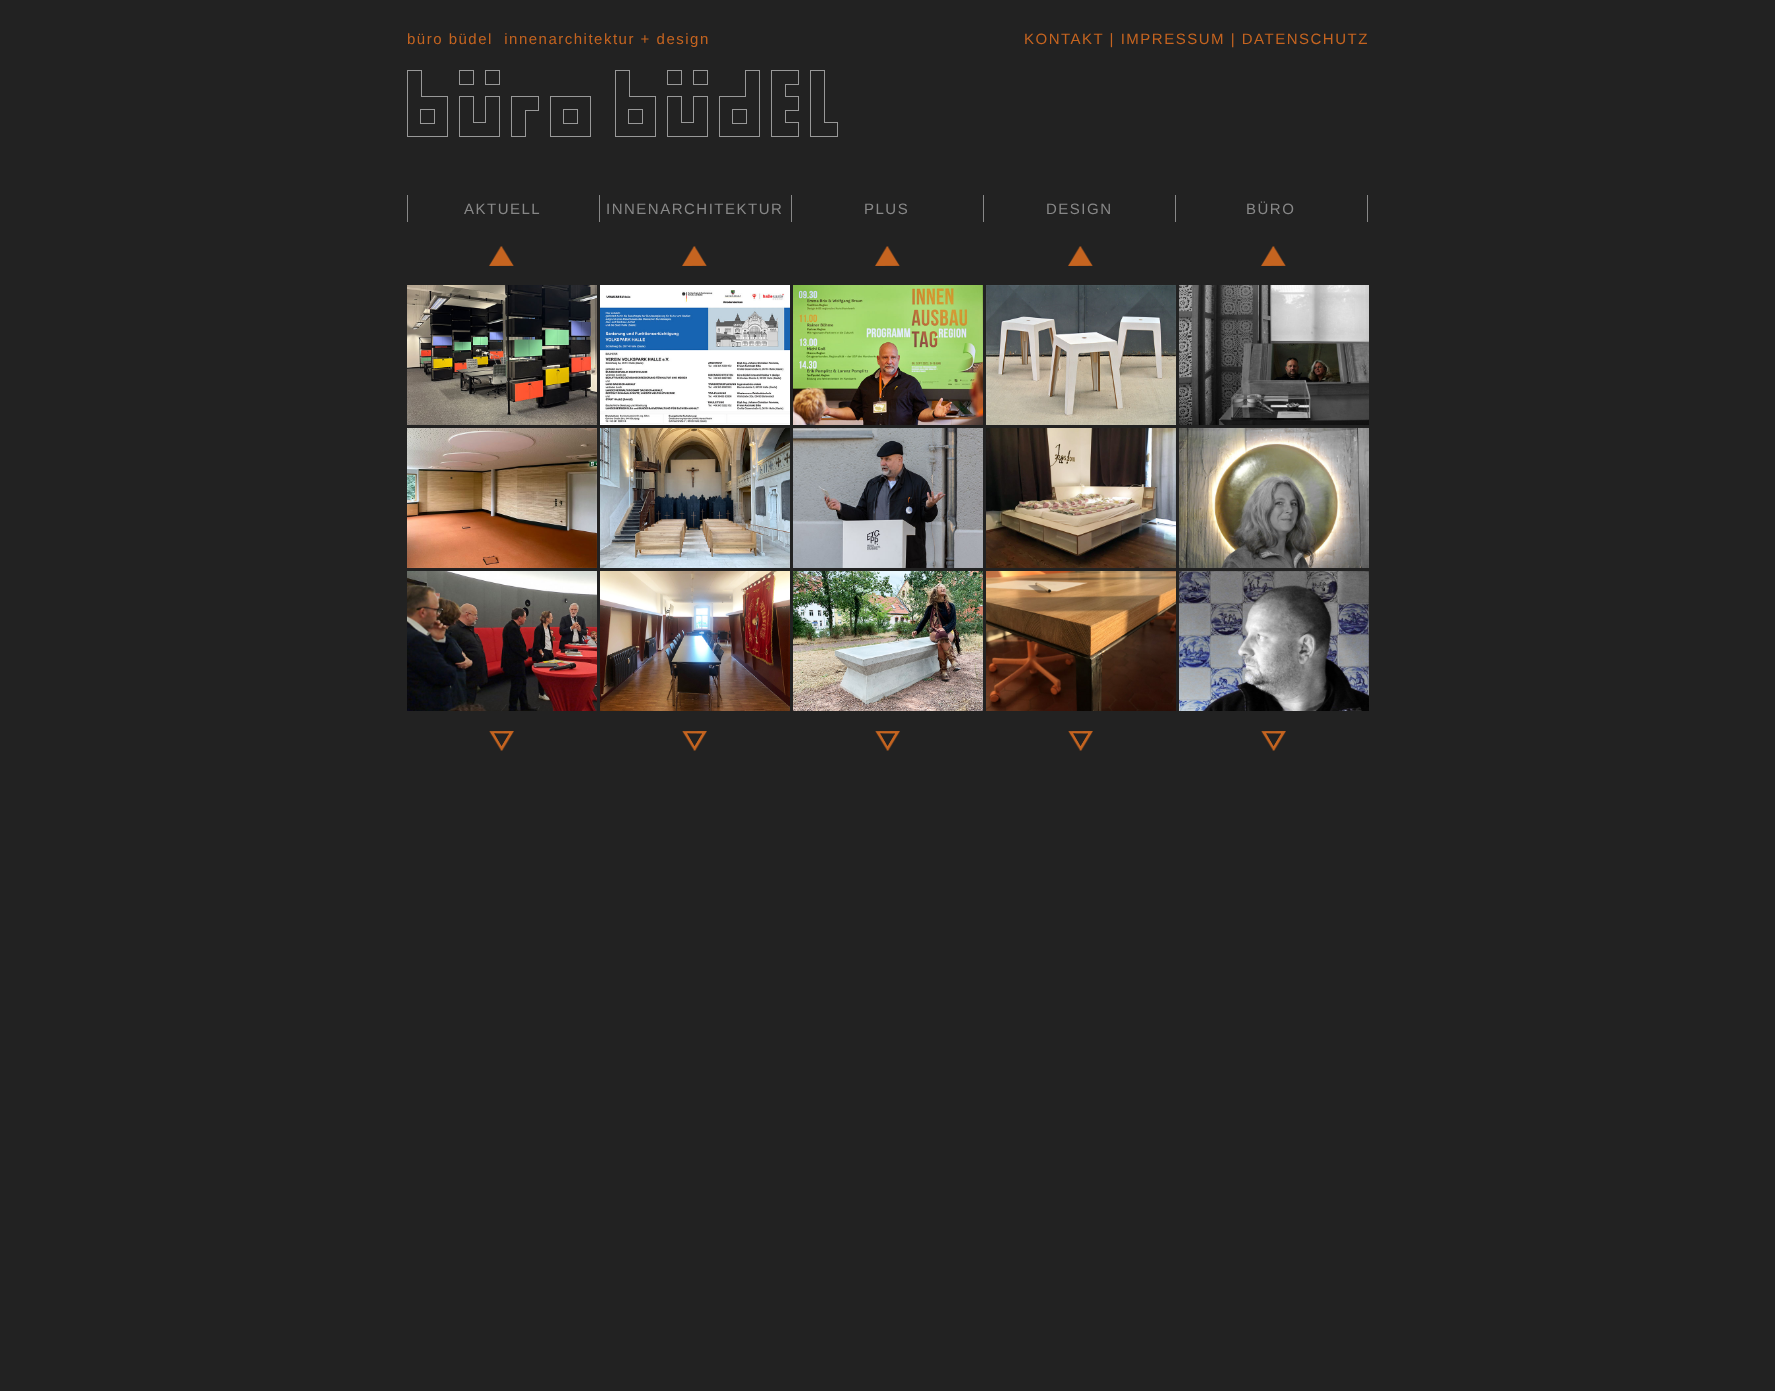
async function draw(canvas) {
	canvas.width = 1775;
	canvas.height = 1391;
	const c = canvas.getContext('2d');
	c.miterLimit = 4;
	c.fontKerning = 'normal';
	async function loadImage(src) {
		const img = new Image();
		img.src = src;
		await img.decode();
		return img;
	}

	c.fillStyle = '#222';
	c.fillRect(0, 0, 1775, 1391);
	c.letterSpacing = '1.5px';
	c.font = '15px Liberation Sans';
	c.fillStyle = '#c56420';
	c.fillText('büro büdel  innenarchitektur + design', 407, 44);
	c.fillText('KONTAKT | IMPRESSUM | DATENSCHUTZ', 1024, 44);
	c.drawImage(await loadImage('img1.png'), 407, 70, 431, 67);
	c.fillStyle = '#888';
	c.fillRect(407, 195, 1, 27);
	c.fillText('AKTUELL', 464, 214);
	c.fillRect(599, 195, 1, 27);
	c.fillText('INNENARCHITEKTUR', 606, 214);
	c.fillRect(791, 195, 1, 27);
	c.fillText('PLUS', 864, 214);
	c.fillRect(983, 195, 1, 27);
	c.fillText('DESIGN', 1046, 214);
	c.fillRect(1367, 195, 1, 27);
	c.fillRect(1175, 195, 1, 27);
	c.fillText('BÜRO', 1246, 214);
	c.drawImage(await loadImage('img2.png'), 489, 246, 25, 20);
	c.drawImage(await loadImage('img3.png'), 489, 731, 25, 20);
	c.drawImage(await loadImage('img4.png'), 407, 285, 190, 140);
	c.drawImage(await loadImage('img5.png'), 407, 428, 190, 140);
	c.drawImage(await loadImage('img6.png'), 407, 571, 190, 140);
	c.drawImage(await loadImage('img2.png'), 682, 246, 25, 20);
	c.drawImage(await loadImage('img3.png'), 682, 731, 25, 20);
	c.drawImage(await loadImage('img7.png'), 600, 285, 190, 140);
	c.drawImage(await loadImage('img8.png'), 600, 428, 190, 140);
	c.drawImage(await loadImage('img9.png'), 600, 571, 190, 140);
	c.drawImage(await loadImage('img2.png'), 875, 246, 25, 20);
	c.drawImage(await loadImage('img3.png'), 875, 731, 25, 20);
	c.drawImage(await loadImage('img10.png'), 793, 285, 190, 140);
	c.drawImage(await loadImage('img11.png'), 793, 428, 190, 140);
	c.drawImage(await loadImage('img12.png'), 793, 571, 190, 140);
	c.drawImage(await loadImage('img2.png'), 1068, 246, 25, 20);
	c.drawImage(await loadImage('img3.png'), 1068, 731, 25, 20);
	c.drawImage(await loadImage('img13.png'), 986, 285, 190, 140);
	c.drawImage(await loadImage('img14.png'), 986, 428, 190, 140);
	c.drawImage(await loadImage('img15.png'), 986, 571, 190, 140);
	c.drawImage(await loadImage('img2.png'), 1261, 246, 25, 20);
	c.drawImage(await loadImage('img3.png'), 1261, 731, 25, 20);
	c.drawImage(await loadImage('img16.png'), 1179, 285, 190, 140);
	c.drawImage(await loadImage('img17.png'), 1179, 428, 190, 140);
	c.drawImage(await loadImage('img18.png'), 1179, 571, 190, 140);
}

draw(document.querySelector('canvas'));
